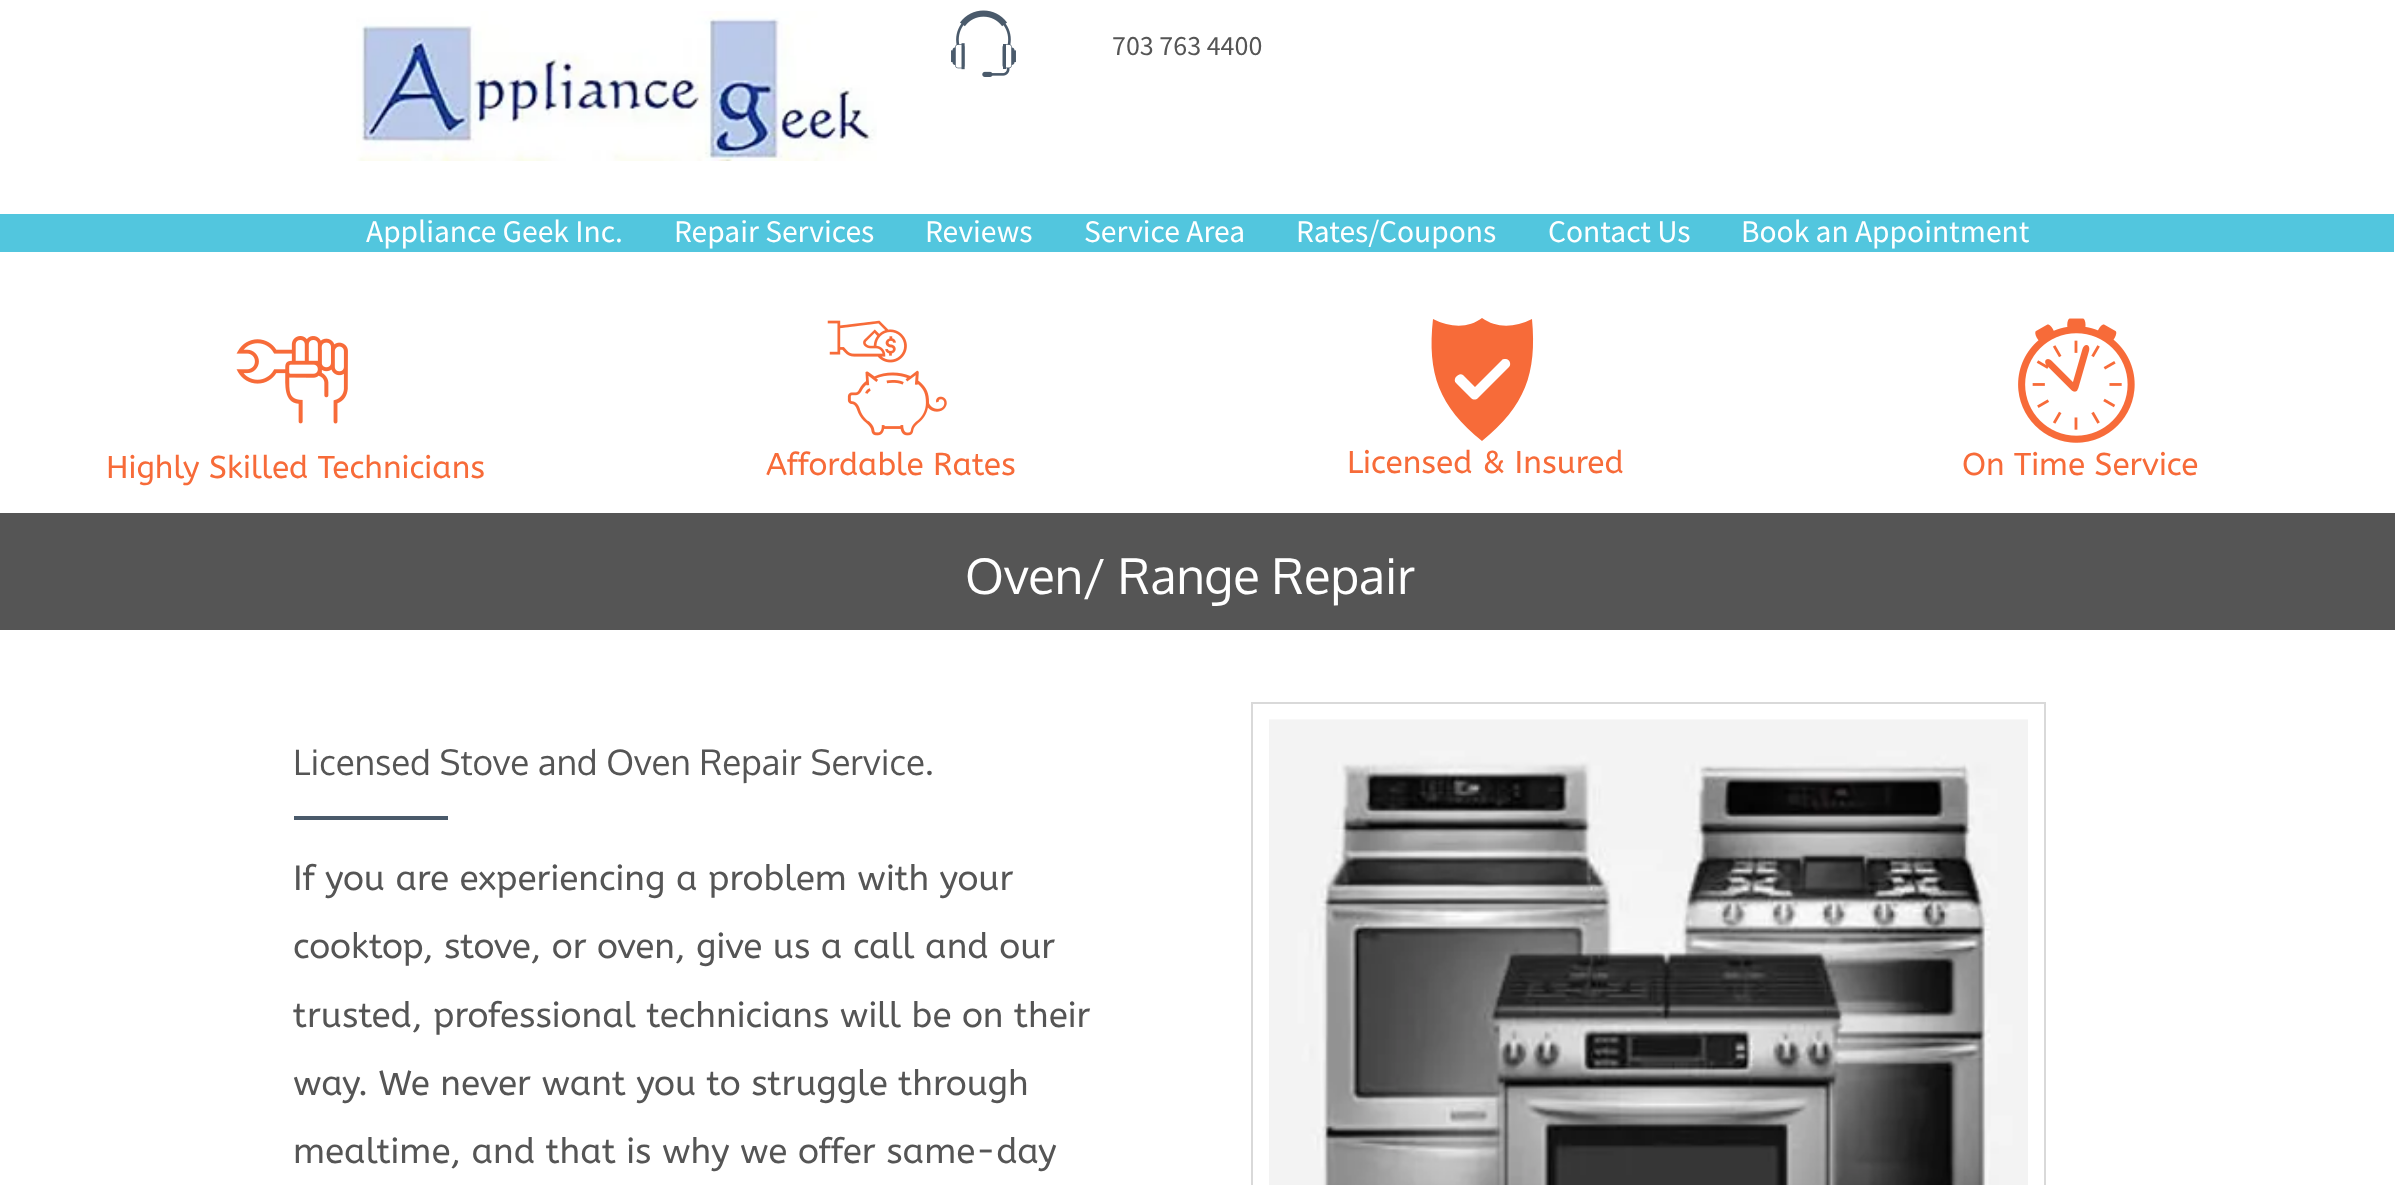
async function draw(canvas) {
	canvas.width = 2395;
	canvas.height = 1185;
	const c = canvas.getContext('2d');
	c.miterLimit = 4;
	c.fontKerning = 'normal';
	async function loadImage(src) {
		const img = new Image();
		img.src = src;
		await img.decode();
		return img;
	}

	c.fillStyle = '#fff';
	c.fillRect(0, 0, 2395, 1185);
	c.drawImage(await loadImage('img1.png'), 356, 11, 521, 150);
	c.drawImage(await loadImage('img2.png'), 951, 10, 65, 67);
	c.font = '28px Source Sans Pro';
	c.fillStyle = '#555';
	c.fillText('703 763 4400', 1112, 55);
	c.fillStyle = '#52c6de';
	c.fillRect(0, 214, 2394, 38);
	c.font = '31.5px Source Sans Pro';
	c.fillStyle = '#fff';
	for (const [text, x, y] of [
		['Appliance Geek Inc.', 366, 242],
		['Repair Services', 674, 242],
		['Reviews', 925, 242],
		['Service Area', 1084, 242],
		['Rates/Coupons', 1296, 242],
		['Contact Us', 1548, 242],
		['Book an Appointment', 1741, 242],
	]) {
		c.fillText(text, x, y);
	}
	c.drawImage(await loadImage('img3.png'), 236, 336, 112, 88);
	c.font = '31.5px ABeeZee';
	c.fillStyle = '#f76b39';
	c.fillText('Highly Skilled Technicians', 106, 478);
	c.drawImage(await loadImage('img4.png'), 827, 320, 120, 116);
	c.fillText('Affordable Rates', 766, 475);
	c.beginPath();
	c.moveTo(1482, 318);
	c.bezierCurveTo(1496, 328, 1514, 328, 1532, 319);
	c.bezierCurveTo(1537, 374, 1525, 406, 1482, 441);
	c.bezierCurveTo(1439, 406, 1427, 374, 1433, 319);
	c.bezierCurveTo(1451, 328, 1469, 328, 1482, 318);
	c.closePath();
	c.moveTo(1505, 359);
	c.bezierCurveTo(1504, 359, 1502, 359, 1502, 360);
	c.lineTo(1475, 387);
	c.lineTo(1463, 375);
	c.bezierCurveTo(1459, 372, 1452, 379, 1456, 383);
	c.lineTo(1471, 398);
	c.bezierCurveTo(1473, 400, 1476, 400, 1478, 398);
	c.lineTo(1509, 367);
	c.bezierCurveTo(1512, 364, 1509, 358, 1505, 359);
	c.closePath();
	c.fill();
	c.fillText('Licensed & Insured', 1347, 473);
	c.drawImage(await loadImage('img5.png'), 2018, 318, 117, 125);
	c.fillText('On Time Service', 1962, 475);
	c.fillStyle = '#555';
	c.fillRect(0, 513, 2395, 117);
	c.font = '49px Oxygen';
	c.fillStyle = '#fff';
	c.fillText('Oven/ Range Repair', 965, 594);
	c.font = '35px Oxygen';
	c.fillStyle = '#555';
	c.fillText('Licensed Stove and Oven Repair Service.', 293, 775);
	c.fillStyle = '#4a5a6b';
	c.fillRect(294, 816, 154, 4);
	c.font = '35px ABeeZee';
	c.fillStyle = '#555';
	for (const [text, x, y] of [
		['If you are experiencing a problem with your', 293, 890],
		['cooktop, stove, or oven, give us a call and our', 293, 958],
		['trusted, professional technicians will be on their', 293, 1027],
		['way. We never want you to struggle through', 293, 1095],
		['mealtime, and that is why we offer same-day', 293, 1163],
	]) {
		c.fillText(text, x, y);
	}
	c.strokeStyle = '#d9d9d9';
	c.lineWidth = 2;
	c.strokeRect(1252, 703, 793, 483);
	c.drawImage(await loadImage('img6.png'), 1269, 719, 759, 466);
}

draw(document.querySelector('canvas'));
